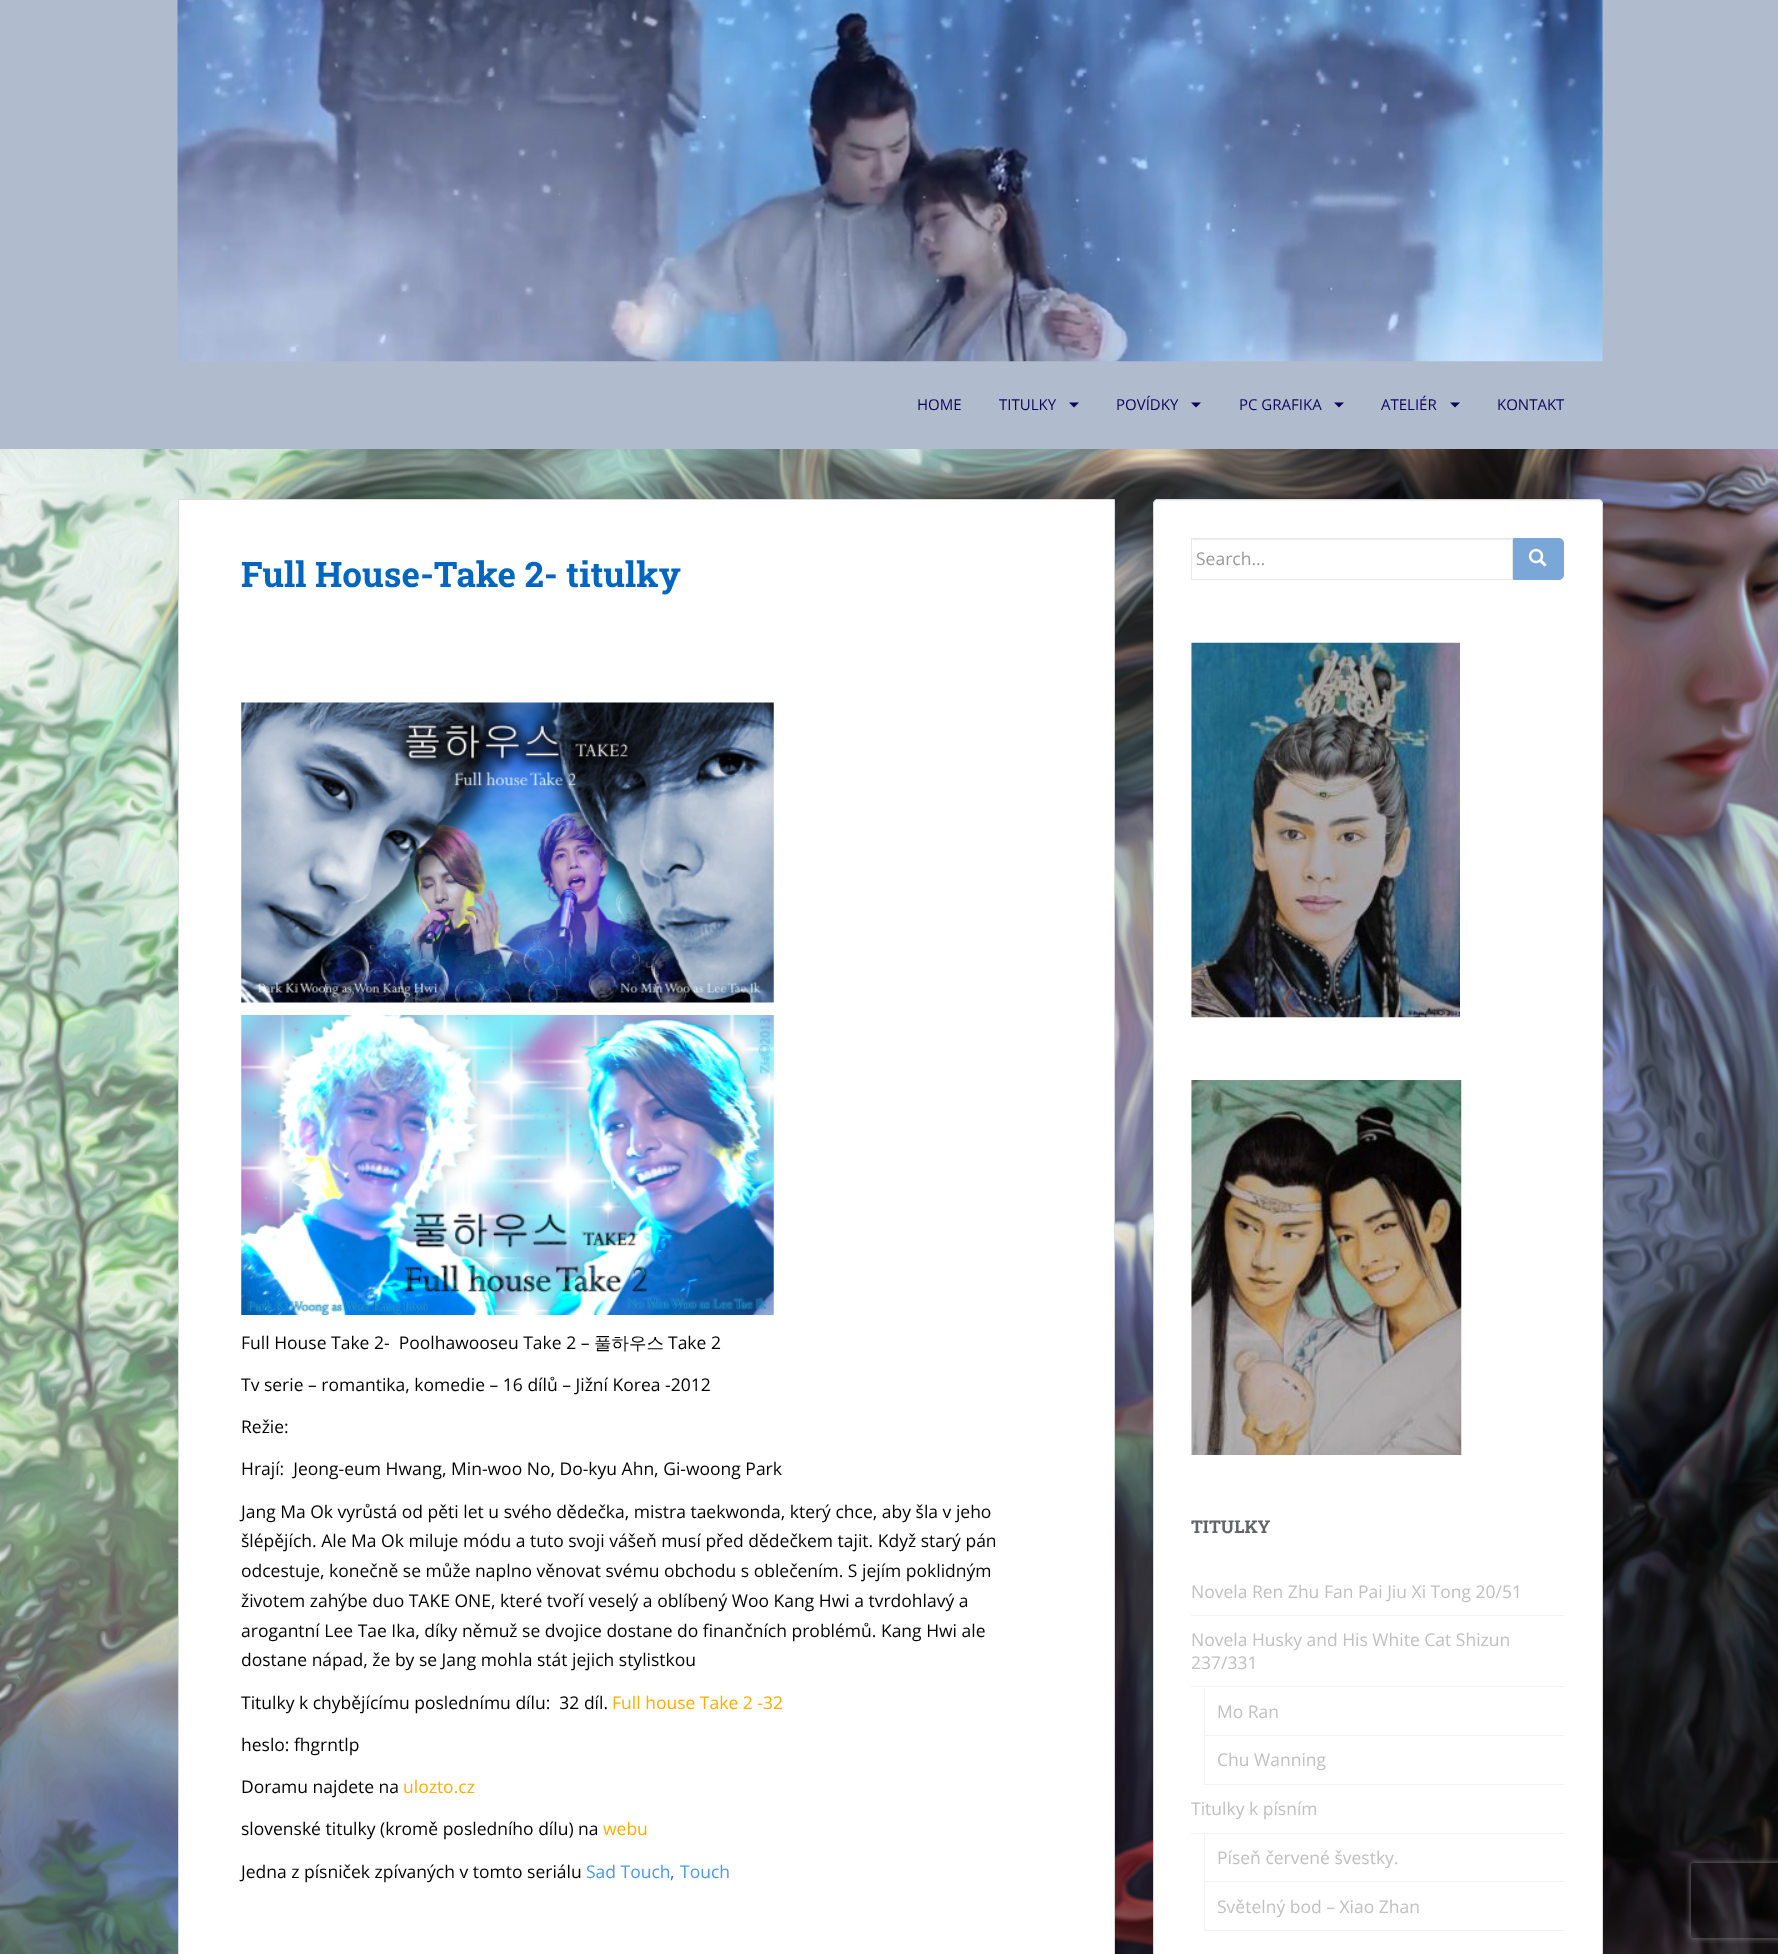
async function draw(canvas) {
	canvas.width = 1778;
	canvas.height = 1954;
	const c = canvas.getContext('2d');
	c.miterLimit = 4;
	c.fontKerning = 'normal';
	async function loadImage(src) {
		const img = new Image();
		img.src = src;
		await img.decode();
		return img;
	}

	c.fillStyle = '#fff';
	c.fillRect(0, 0, 1778, 1954);
	c.drawImage(await loadImage('img1.png'), 0, 449, 1778, 1505);
	c.fillStyle = '#b1bbce';
	c.fillRect(0, 0, 1778, 449);
	c.drawImage(await loadImage('img2.png'), 177, 0, 1426, 362);
	c.font = '15px Open Sans';
	c.fillStyle = '#0b0459';
	c.fillText('HOME', 917, 410);
	c.fillText('TITULKY', 999, 410);
	c.beginPath();
	c.moveTo(1069, 402.5);
	c.lineTo(1079, 402.5);
	c.lineTo(1074, 407.5);
	c.closePath();
	c.fill();
	c.fillText('POVÍDKY', 1116, 410);
	c.beginPath();
	c.moveTo(1191, 402.5);
	c.lineTo(1201, 402.5);
	c.lineTo(1196, 407.5);
	c.closePath();
	c.fill();
	c.fillText('PC GRAFIKA', 1239, 410);
	c.beginPath();
	c.moveTo(1334, 402.5);
	c.lineTo(1344, 402.5);
	c.lineTo(1339, 407.5);
	c.closePath();
	c.fill();
	c.fillText('ATELIÉR', 1381, 410);
	c.beginPath();
	c.moveTo(1450, 402.5);
	c.lineTo(1460, 402.5);
	c.lineTo(1455, 407.5);
	c.closePath();
	c.fill();
	c.fillText('KONTAKT', 1497, 410);
	c.fillStyle = '#fff';
	c.beginPath();
	c.rect(178.5, 499.5, 936, 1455);
	c.fill();
	c.strokeStyle = '#dadada';
	c.stroke();
	c.font = 'bold 35px Roboto Slab';
	c.fillStyle = '#0066bf';
	c.fillText('Full House-Take 2- titulky', 241, 587);
	c.drawImage(await loadImage('img3.png'), 241, 702, 533, 301);
	c.drawImage(await loadImage('img4.png'), 241, 1015, 533, 300);
	c.font = '17.5px Open Sans';
	c.fillStyle = '#000';
	c.fillText('Full House Take 2-  Poolhawooseu Take 2 –', 241, 1349);
	c.font = '500 17.5px WenQuanYi Zen Hei';
	c.fillText('풀하우스', 594, 1349);
	c.font = '17.5px Open Sans';
	for (const [text, x, y] of [
		['Take 2', 668, 1349],
		['Tv serie – romantika, komedie – 16 dílů – Jižní Korea -2012', 241, 1391],
		['Režie:', 241, 1433],
		['Hrají:  Jeong-eum Hwang, Min-woo No, Do-kyu Ahn, Gi-woong Park', 241, 1475],
		['Jang Ma Ok vyrůstá od pěti let u svého dědečka, mistra taekwonda, který chce, aby šla v jeho', 241, 1518],
		['šlépějích. Ale Ma Ok miluje módu a tuto svoji vášeň musí před dědečkem tajit. Když starý pán', 241, 1547],
		['odcestuje, konečně se může naplno věnovat svému obchodu s oblečením. S jejím poklidným', 241, 1577],
		['životem zahýbe duo TAKE ONE, které tvoří veselý a oblíbený Woo Kang Hwi a tvrdohlavý a', 241, 1607],
		['arogantní Lee Tae Ika, díky němuž se dvojice dostane do finančních problémů. Kang Hwi ale', 241, 1637],
		['dostane nápad, že by se Jang mohla stát jejich stylistkou', 241, 1666],
		['Titulky k chybějícímu poslednímu dílu:  32 díl.', 241, 1709],
	]) {
		c.fillText(text, x, y);
	}
	c.fillStyle = '#ffae00';
	c.fillText('Full house Take 2 -32', 612, 1709);
	c.fillStyle = '#000';
	c.fillText('heslo: fhgrntlp', 241, 1751);
	c.fillText('Doramu najdete na', 241, 1793);
	c.fillStyle = '#ffae00';
	c.fillText('ulozto.cz', 403, 1793);
	c.fillStyle = '#000';
	c.fillText('slovenské titulky (kromě posledního dílu) na', 241, 1835);
	c.fillStyle = '#ffae00';
	c.fillText('webu', 603, 1835);
	c.fillStyle = '#000';
	c.fillText('Jedna z písniček zpívaných v tomto seriálu', 241, 1878);
	c.fillStyle = '#4a99e8';
	c.fillText('Sad Touch', 586, 1878);
	c.fillStyle = '#36f';
	c.fillText(',', 670, 1878);
	c.fillStyle = '#4a99e8';
	c.fillText('Touch', 680, 1878);
	c.save();
	c.beginPath();
	c.moveTo(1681, 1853);
	c.lineTo(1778, 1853);
	c.lineTo(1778, 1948);
	c.lineTo(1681, 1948);
	c.closePath();
	c.moveTo(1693.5, 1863);
	c.lineTo(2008.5, 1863);
	c.bezierCurveTo(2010, 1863, 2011, 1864, 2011, 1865.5);
	c.lineTo(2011, 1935.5);
	c.bezierCurveTo(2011, 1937, 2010, 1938, 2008.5, 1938);
	c.lineTo(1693.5, 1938);
	c.bezierCurveTo(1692, 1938, 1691, 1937, 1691, 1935.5);
	c.lineTo(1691, 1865.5);
	c.bezierCurveTo(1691, 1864, 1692, 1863, 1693.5, 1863);
	c.closePath();
	c.clip('evenodd');
	c.fillStyle = '#808080';
	c.filter = 'blur(3px)';
	c.beginPath();
	c.roundRect(1691, 1863, 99, 75, 2.5);
	c.fill();
	c.filter = 'none';
	c.restore();
	c.fillStyle = '#fff';
	c.beginPath();
	c.roundRect(1153, 499, 450, 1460, 5);
	c.fill();
	c.fillStyle = '#f2f2f2';
	c.beginPath();
	c.moveTo(1158, 501);
	c.lineTo(1598, 501);
	c.bezierCurveTo(1600, 501, 1601, 503, 1601, 505);
	c.bezierCurveTo(1601, 502, 1600, 500, 1597, 500);
	c.lineTo(1158, 500);
	c.lineTo(1156, 501);
	c.lineTo(1155, 502);
	c.lineTo(1154, 505);
	c.bezierCurveTo(1154, 503, 1155, 501, 1158, 501);
	c.closePath();
	c.fill();
	c.beginPath();
	c.roundRect(1153.5, 499.5, 449, 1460, 4.5);
	c.stroke();
	c.fillStyle = '#ececec';
	c.fillRect(1193, 539, 318, 1);
	c.strokeStyle = '#e8e8e8';
	c.strokeRect(1191.5, 538.5, 321, 41);
	c.fillStyle = '#999';
	c.fillText('Search…', 1196, 565);
	c.fillStyle = '#7ba7d8';
	c.beginPath();
	c.roundRect(1513.5, 538.5, 50, 41, [0, 4.5, 4.5, 0]);
	c.fill();
	c.strokeStyle = '#7ba7d8';
	c.stroke();
	c.drawImage(await loadImage('img5.png'), 1528, 548, 19, 19);
	c.drawImage(await loadImage('img6.png'), 1191, 642, 269, 376);
	c.drawImage(await loadImage('img7.png'), 1191, 1080, 271, 375);
	c.font = 'bold 17.5px Roboto Slab';
	c.fillStyle = '#636467';
	c.fillText('TITULKY', 1191, 1533);
	c.fillStyle = '#f2f2f2';
	c.fillRect(1191, 1615, 373, 1);
	c.font = '17.5px Open Sans';
	c.fillStyle = '#c1c0c0';
	c.fillText('Novela Ren Zhu Fan Pai Jiu Xi Tong 20/51', 1191, 1598);
	c.fillStyle = '#f2f2f2';
	c.fillRect(1191, 1686, 373, 1);
	c.fillStyle = '#c1c0c0';
	c.fillText('Novela Husky and His White Cat Shizun', 1191, 1646);
	c.fillText('237/331', 1191, 1669);
	c.fillStyle = '#f2f2f2';
	c.fillRect(1204, 1735, 360, 1);
	c.fillRect(1204, 1688, 1, 48);
	c.fillStyle = '#c1c0c0';
	c.fillText('Mo Ran', 1217, 1718);
	c.fillStyle = '#f2f2f2';
	c.fillRect(1204, 1784, 360, 1);
	c.fillRect(1204, 1736, 1, 49);
	c.fillStyle = '#c1c0c0';
	c.fillText('Chu Wanning', 1217, 1766);
	c.fillStyle = '#f2f2f2';
	c.fillRect(1191, 1833, 373, 1);
	c.fillStyle = '#c1c0c0';
	c.fillText('Titulky k písním', 1191, 1815);
	c.fillStyle = '#f2f2f2';
	c.fillRect(1204, 1881, 360, 1);
	c.fillRect(1204, 1834, 1, 49);
	c.fillStyle = '#c1c0c0';
	c.fillText('Píseň červené švestky.', 1217, 1864);
	c.fillStyle = '#f2f2f2';
	c.fillRect(1204, 1930, 360, 1);
	c.fillRect(1204, 1883, 1, 48);
	c.fillStyle = '#c1c0c0';
	c.fillText('Světelný bod – Xiao Zhan', 1217, 1913);
}

draw(document.querySelector('canvas'));
